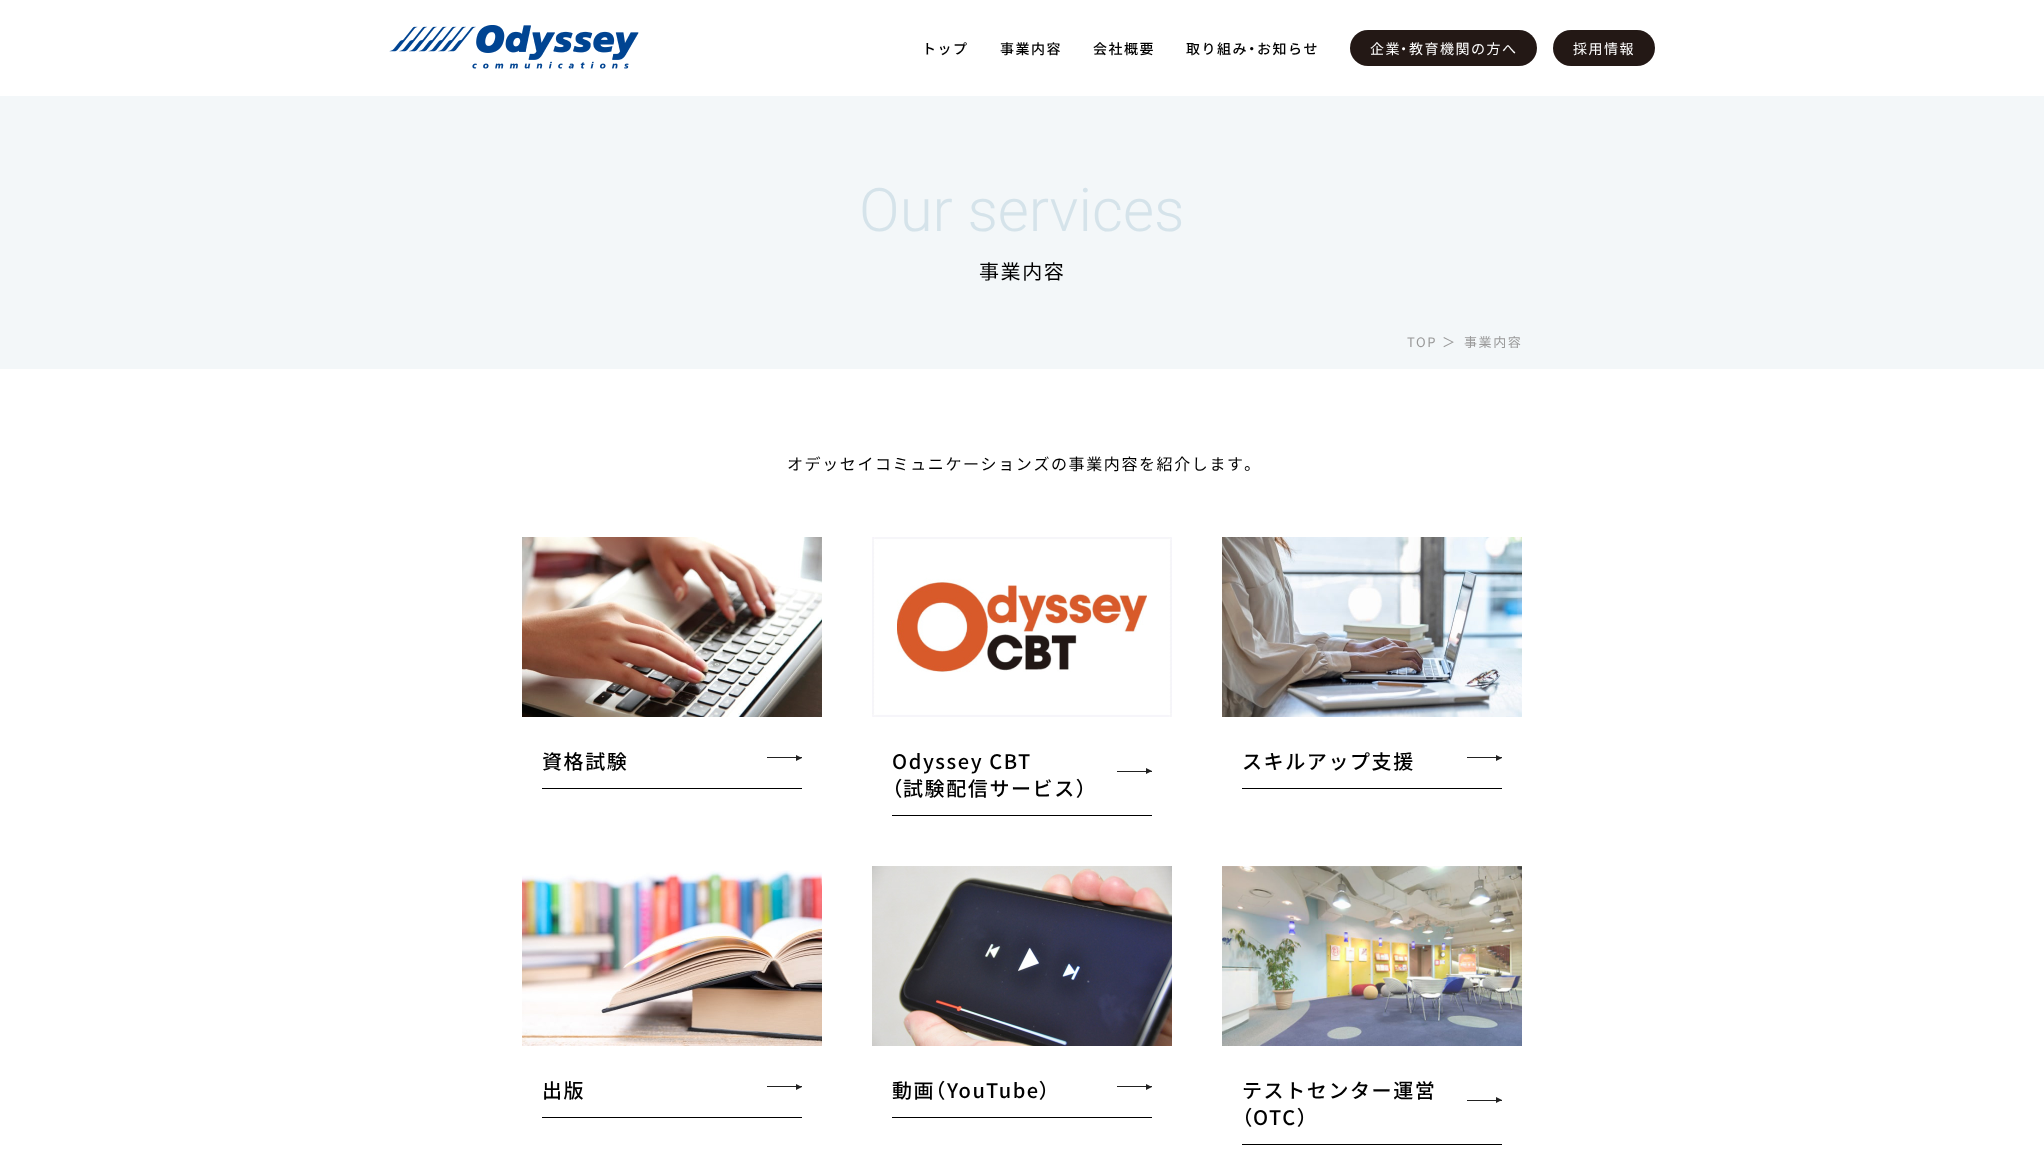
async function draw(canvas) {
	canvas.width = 2044;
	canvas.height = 1169;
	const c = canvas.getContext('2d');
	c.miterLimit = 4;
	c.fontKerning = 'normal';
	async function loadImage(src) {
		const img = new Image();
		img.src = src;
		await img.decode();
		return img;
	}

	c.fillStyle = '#fff';
	c.fillRect(0, 0, 2044, 1169);
	c.drawImage(await loadImage('img1.png'), 389, 25, 250, 44);
	c.letterSpacing = '1.5px';
	c.font = '500 14px Noto Sans JP';
	c.fillStyle = '#000';
	for (const [text, x, y] of [
		['トップ', 922, 54],
		['事業内容', 1000, 54],
		['会社概要', 1093, 54],
		['取り組み', 1186, 54],
	]) {
		c.fillText(text, x, y);
	}
	c.font = '500 14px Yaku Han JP';
	c.fillText('・', 1248, 54);
	c.font = '500 14px Noto Sans JP';
	c.fillText('お知らせ', 1257, 54);
	c.fillStyle = '#231815';
	c.beginPath();
	c.roundRect(1350, 30, 187, 36, 18);
	c.fill();
	c.font = '14px Noto Sans JP';
	c.fillStyle = '#fff';
	c.fillText('企業', 1370, 54);
	c.font = '14px Yaku Han JP';
	c.fillText('・', 1400, 54);
	c.font = '14px Noto Sans JP';
	c.fillText('教育機関の方へ', 1409, 54);
	c.fillStyle = '#231815';
	c.beginPath();
	c.roundRect(1553, 30, 102, 36, 18);
	c.fill();
	c.fillStyle = '#fff';
	c.fillText('採用情報', 1573, 54);
	c.fillStyle = '#f3f7f9';
	c.fillRect(0, 96, 2044, 273);
	c.letterSpacing = '0px';
	c.font = '300 60px Roboto';
	c.fillStyle = '#d5e3ea';
	c.fillText('Our services', 859, 231);
	c.letterSpacing = '1.6px';
	c.font = '20px Noto Sans JP';
	c.fillStyle = '#000';
	c.fillText('事業内容', 979, 279);
	c.font = '13px Noto Sans JP';
	c.fillStyle = '#999';
	for (const [text, x, y] of [
		['TOP', 1407, 347],
		['＞', 1442, 347],
		['事業内容', 1464, 347],
	]) {
		c.fillText(text, x, y);
	}
	c.font = '16px Noto Sans JP';
	c.fillStyle = '#000';
	c.fillText('オデッセイコミュニケーションズの事業内容を紹介します', 787, 470);
	c.font = '16px Yaku Han JP';
	c.fillText('。', 1244, 470);
	c.drawImage(await loadImage('img2.png'), 522, 537, 300, 180);
	c.font = '500 20px Noto Sans JP';
	c.fillText('資格試験', 542, 769);
	c.fillStyle = '#222';
	c.fillRect(767, 757, 35, 1);
	c.beginPath();
	c.moveTo(796, 761);
	c.lineTo(796, 755);
	c.lineTo(802, 758);
	c.closePath();
	c.fill();
	c.fillStyle = '#000';
	c.fillRect(542, 788, 260, 1);
	c.drawImage(await loadImage('img3.png'), 872, 537, 300, 180);
	c.fillText('Odyssey CBT', 892, 769);
	c.fillStyle = '#222';
	c.fillRect(1117, 771, 35, 1);
	c.beginPath();
	c.moveTo(1146, 774);
	c.lineTo(1146, 768);
	c.lineTo(1152, 771);
	c.closePath();
	c.fill();
	c.font = '500 20px Yaku Han JP';
	c.fillStyle = '#000';
	c.fillText('（', 892, 796);
	c.font = '500 20px Noto Sans JP';
	c.fillText('試験配信サービス', 903, 796);
	c.font = '500 20px Yaku Han JP';
	c.fillText('）', 1076, 796);
	c.fillRect(892, 815, 260, 1);
	c.drawImage(await loadImage('img4.png'), 1222, 537, 300, 180);
	c.font = '500 20px Noto Sans JP';
	c.fillText('スキルアップ支援', 1242, 769);
	c.fillStyle = '#222';
	c.fillRect(1467, 757, 35, 1);
	c.beginPath();
	c.moveTo(1496, 761);
	c.lineTo(1496, 755);
	c.lineTo(1502, 758);
	c.closePath();
	c.fill();
	c.fillStyle = '#000';
	c.fillRect(1242, 788, 260, 1);
	c.drawImage(await loadImage('img5.png'), 522, 870, 300, 176);
	c.fillText('出版', 542, 1098);
	c.fillStyle = '#222';
	c.fillRect(767, 1086, 35, 1);
	c.beginPath();
	c.moveTo(796, 1090);
	c.lineTo(796, 1084);
	c.lineTo(802, 1087);
	c.closePath();
	c.fill();
	c.fillStyle = '#000';
	c.fillRect(542, 1117, 260, 1);
	c.drawImage(await loadImage('img6.png'), 872, 866, 300, 180);
	c.fillText('動画', 892, 1098);
	c.font = '500 20px Yaku Han JP';
	c.fillText('（', 935, 1098);
	c.font = '500 20px Noto Sans JP';
	c.fillText('YouTube', 947, 1098);
	c.font = '500 20px Yaku Han JP';
	c.fillText('）', 1039, 1098);
	c.fillStyle = '#222';
	c.fillRect(1117, 1086, 35, 1);
	c.beginPath();
	c.moveTo(1146, 1090);
	c.lineTo(1146, 1084);
	c.lineTo(1152, 1087);
	c.closePath();
	c.fill();
	c.fillStyle = '#000';
	c.fillRect(892, 1117, 260, 1);
	c.drawImage(await loadImage('img7.png'), 1222, 866, 300, 180);
	c.font = '500 20px Noto Sans JP';
	c.fillText('テストセンター運営', 1242, 1098);
	c.fillStyle = '#222';
	c.fillRect(1467, 1100, 35, 1);
	c.beginPath();
	c.moveTo(1496, 1103);
	c.lineTo(1496, 1097);
	c.lineTo(1502, 1100);
	c.closePath();
	c.fill();
	c.font = '500 20px Yaku Han JP';
	c.fillStyle = '#000';
	c.fillText('（', 1242, 1125);
	c.font = '500 20px Noto Sans JP';
	c.fillText('OTC', 1253, 1125);
	c.font = '500 20px Yaku Han JP';
	c.fillText('）', 1297, 1125);
	c.fillRect(1242, 1144, 260, 1);
}

draw(document.querySelector('canvas'));
